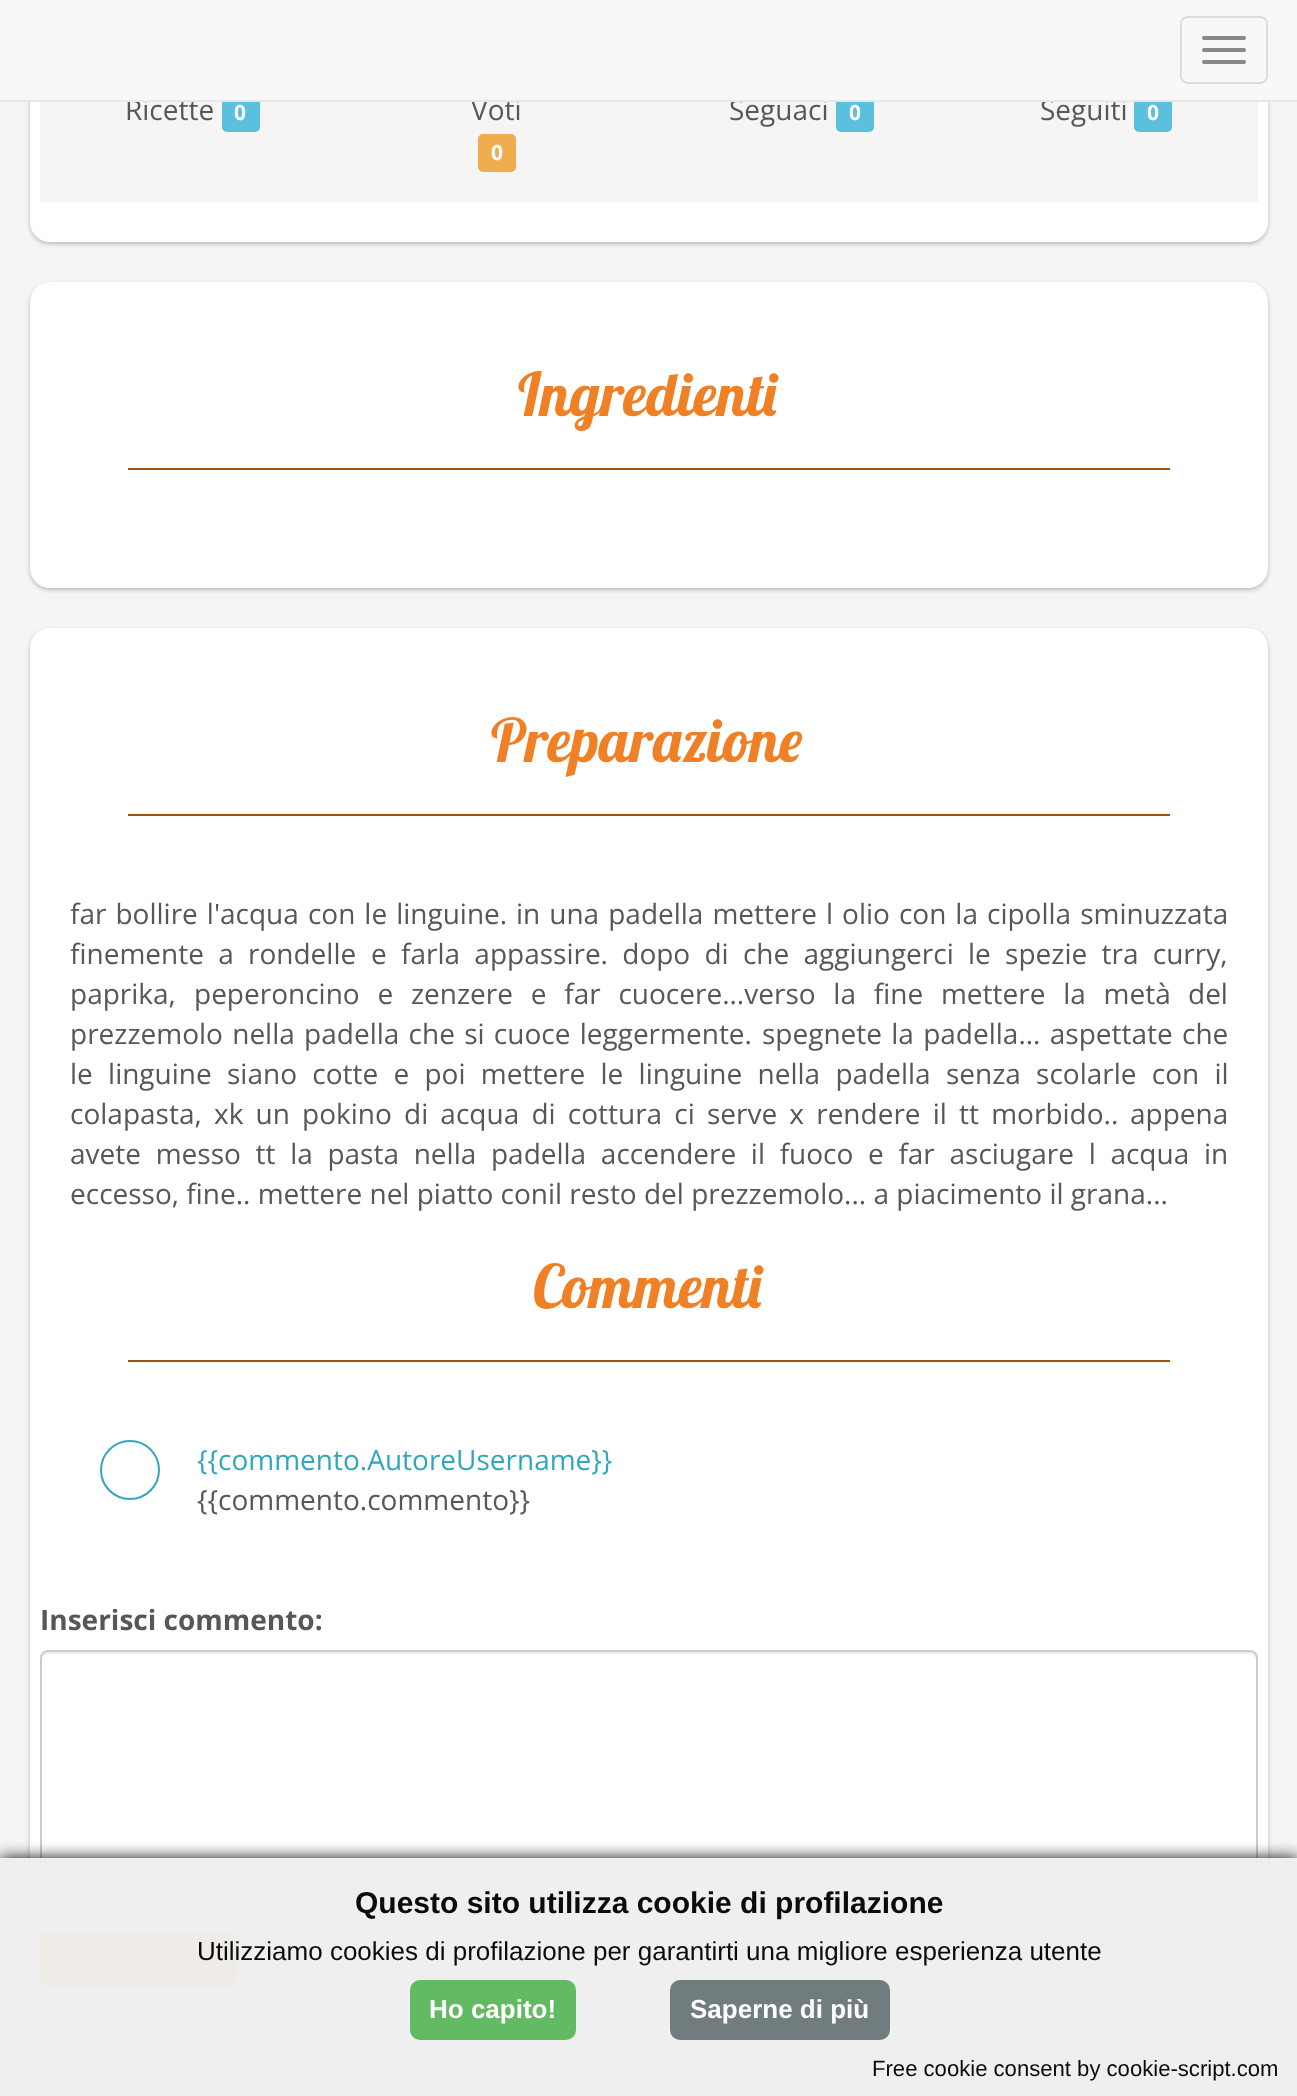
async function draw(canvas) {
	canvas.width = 1297;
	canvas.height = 2096;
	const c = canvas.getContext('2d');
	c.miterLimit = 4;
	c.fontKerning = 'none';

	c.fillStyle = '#f5f5f5';
	c.fillRect(0, 0, 1297, 2096);
	c.fillStyle = '#0000003d';
	c.filter = 'blur(2px)';
	c.beginPath();
	c.roundRect(30, -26, 1238, 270, 20);
	c.fill();
	c.filter = 'none';
	c.fillStyle = '#fff';
	c.beginPath();
	c.roundRect(30, -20, 1238, 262, 20);
	c.fill();
	c.fillStyle = '#f5f5f5';
	c.fillRect(40, 102, 1218, 100);
	c.font = '28px Open Sans';
	c.fillStyle = '#575756';
	c.fillText('Ricette', 125, 120);
	c.fillStyle = '#5bc0de';
	c.beginPath();
	c.roundRect(222, 94, 38, 38, 5);
	c.fill();
	c.fillStyle = '#575756';
	c.fillText('Voti', 471, 120);
	c.fillText('Seguaci', 729, 120);
	c.fillStyle = '#5bc0de';
	c.beginPath();
	c.roundRect(836, 94, 38, 38, 5);
	c.fill();
	c.fillStyle = '#575756';
	c.fillText('Seguiti', 1040, 120);
	c.fillStyle = '#5bc0de';
	c.beginPath();
	c.roundRect(1134, 94, 38, 38, 5);
	c.fill();
	c.fillStyle = '#f8f8f8';
	c.fillRect(0, 0, 1297, 100);
	c.fillStyle = '#e7e7e7';
	c.fillRect(0, 100, 1297, 2);
	c.beginPath();
	c.roundRect(1181, 17, 86, 66, 7);
	c.strokeStyle = '#ddd';
	c.lineWidth = 2;
	c.stroke();
	c.fillStyle = '#888';
	c.beginPath();
	c.roundRect(1202, 36, 44, 4, 2);
	c.fill();
	c.beginPath();
	c.roundRect(1202, 48, 44, 4, 2);
	c.fill();
	c.beginPath();
	c.roundRect(1202, 60, 44, 4, 2);
	c.fill();
	c.font = 'bold 21px Open Sans';
	c.fillStyle = '#fff';
	c.fillText('0', 234, 120);
	c.fillStyle = '#f0ad4e';
	c.beginPath();
	c.roundRect(478, 134, 38, 38, 5);
	c.fill();
	c.fillStyle = '#fff';
	for (const [text, x, y] of [
		['0', 491, 160],
		['0', 849, 120],
		['0', 1147, 120],
	]) {
		c.fillText(text, x, y);
	}
	c.fillStyle = '#0000003d';
	c.filter = 'blur(2px)';
	c.beginPath();
	c.roundRect(30, 284, 1238, 306, 20);
	c.fill();
	c.filter = 'none';
	c.fillStyle = '#fff';
	c.beginPath();
	c.roundRect(30, 282, 1238, 306, 20);
	c.fill();
	c.font = '60px Lobster';
	c.fillStyle = '#ef8026';
	c.fillText('Ingredienti', 518, 416);
	c.fillStyle = '#a3500d';
	c.fillRect(128, 468, 1042, 2);
	c.fillStyle = '#0000003d';
	c.filter = 'blur(2px)';
	c.beginPath();
	c.roundRect(30, 630, 1238, 1428, 20);
	c.fill();
	c.filter = 'none';
	c.fillStyle = '#fff';
	c.beginPath();
	c.roundRect(30, 628, 1238, 1428, 20);
	c.fill();
	c.fillStyle = '#ef8026';
	c.fillText('Preparazione', 491, 762);
	c.fillStyle = '#a3500d';
	c.fillRect(128, 814, 1042, 2);
	c.wordSpacing = '1.75px';
	c.font = '28px Open Sans';
	c.fillStyle = '#575756';
	c.fillText('far bollire l\'acqua con le linguine.', 70, 924);
	c.fillText('in una padella mettere l olio con la cipolla sminuzzata', 516, 924);
	c.wordSpacing = '7px';
	c.fillText('finemente a rondelle', 70, 964);
	c.fillText('e farla appassire. dopo di che aggiungerci le spezie tra curry,', 371, 964);
	c.wordSpacing = '0px';
	c.fillText('paprika,', 70, 1004);
	c.wordSpacing = '10.5px';
	c.fillText('peperoncino e zenzere e far cuocere...verso la fine mettere la metà', 194, 1004);
	c.wordSpacing = '0px';
	c.fillText('del', 1188, 1004);
	c.wordSpacing = '2px';
	c.fillText('prezzemolo nella padella che si cuoce leggermente.', 70, 1044);
	c.fillText('spegnete la padella... aspettate che', 762, 1044);
	c.wordSpacing = '8px';
	c.fillText('le linguine siano cotte e poi mettere le linguine nella padella senza scolarle con il', 70, 1084);
	c.wordSpacing = '0px';
	c.fillText('colapasta,', 70, 1124);
	c.wordSpacing = '4.9px';
	c.fillText('xk un pokino di acqua di cottura ci serve x rendere il tt morbido..', 214, 1124);
	c.wordSpacing = '0px';
	c.fillText('appena', 1130, 1124);
	c.wordSpacing = '7.4px';
	c.fillText('avete messo tt la pasta nella padella accendere il fuoco e far asciugare l acqua in', 70, 1164);
	c.wordSpacing = '0px';
	c.fillText('eccesso, fine.. mettere nel piatto conil resto del prezzemolo... a piacimento il grana...', 70, 1204);
	c.font = '60px Lobster';
	c.fillStyle = '#ef8026';
	c.fillText('Commenti', 533, 1308);
	c.fillStyle = '#a3500d';
	c.fillRect(128, 1360, 1042, 2);
	c.beginPath();
	c.arc(130, 1470, 29, 0, 2 * Math.PI);
	c.strokeStyle = '#31a7bc';
	c.stroke();
	c.font = '28px Open Sans';
	c.fillStyle = '#31a7bc';
	c.fillText('{{commento.AutoreUsername}}', 197, 1470);
	c.fillStyle = '#575756';
	c.fillText('{{commento.commento}}', 197, 1510);
	c.font = 'bold 28px Open Sans';
	c.fillText('Inserisci commento:', 40, 1630);
	c.fillStyle = '#ececec';
	c.beginPath();
	c.moveTo(48, 1654);
	c.lineTo(1250, 1654);
	c.bezierCurveTo(1253, 1654, 1256, 1657, 1256, 1660);
	c.lineTo(1256, 1658);
	c.bezierCurveTo(1256, 1655, 1253, 1652, 1250, 1652);
	c.lineTo(48, 1652);
	c.bezierCurveTo(45, 1652, 42, 1655, 42, 1658);
	c.lineTo(42, 1660);
	c.bezierCurveTo(42, 1657, 45, 1654, 48, 1654);
	c.closePath();
	c.fill();
	c.beginPath();
	c.roundRect(41, 1651, 1216, 226, 7);
	c.strokeStyle = '#ccc';
	c.stroke();
	c.fillStyle = '#f0ad4e';
	c.beginPath();
	c.roundRect(41, 1919, 194, 66, 7);
	c.fill();
	c.strokeStyle = '#eea236';
	c.stroke();
	c.save();
	c.beginPath();
	c.rect(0, 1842, 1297, 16);
	c.clip();
	c.fillStyle = '#000000f5';
	c.filter = 'blur(8px)';
	c.beginPath();
	c.rect(0, 1858, 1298, 238);
	c.fill();
	c.filter = 'none';
	c.restore();
	c.fillStyle = '#eeeeeef5';
	c.fillRect(0, 1858, 1297, 238);
	c.fillRect(40, 1918, 196, 16);
	c.font = 'bold 30px Liberation Sans';
	c.fillStyle = '#0b0b0b';
	c.fillText('Questo sito utilizza cookie di profilazione', 355, 1913);
	c.font = '26px Liberation Sans';
	c.fillText('Utilizziamo cookies di profilazione per garantirti una migliore esperienza utente', 197, 1960);
	c.fillStyle = '#62ba62';
	c.beginPath();
	c.roundRect(410, 1980, 166, 60, 10);
	c.fill();
	c.font = 'bold 26px Liberation Sans';
	c.fillStyle = '#fff';
	c.fillText('Ho capito!', 429, 2018);
	c.fillStyle = '#707c7d';
	c.beginPath();
	c.roundRect(670, 1980, 220, 60, 10);
	c.fill();
	c.fillStyle = '#fff';
	c.fillText('Saperne di più', 690, 2018);
	c.font = '22.1px Liberation Sans';
	c.fillStyle = '#0b0b0b';
	c.fillText('Free cookie consent by cookie-script.com', 872, 2076);
}

draw(document.querySelector('canvas'));
